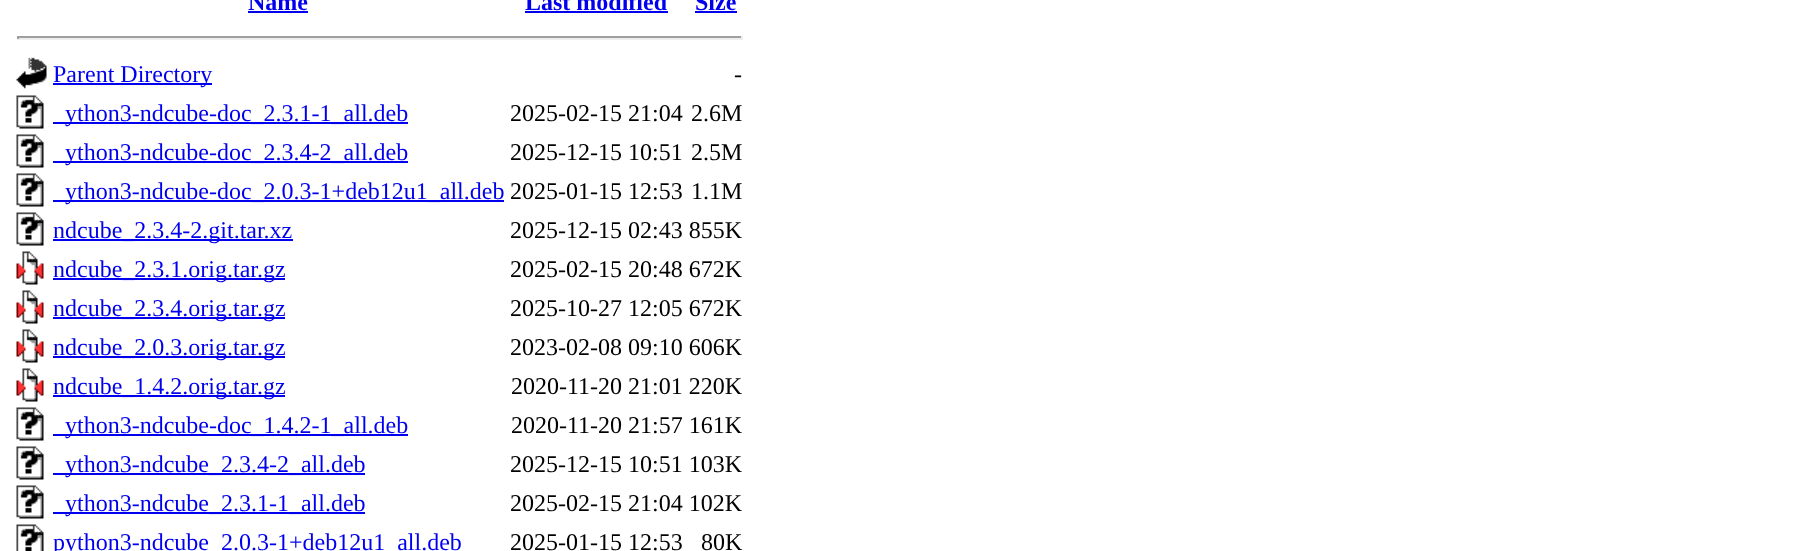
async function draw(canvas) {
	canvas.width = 1809;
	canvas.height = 551;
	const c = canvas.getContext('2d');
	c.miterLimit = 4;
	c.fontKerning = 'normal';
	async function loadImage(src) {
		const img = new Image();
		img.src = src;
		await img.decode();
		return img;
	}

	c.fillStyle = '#fff';
	c.fillRect(0, 0, 1809, 551);
	c.font = 'bold 24px Liberation Serif';
	c.fillStyle = '#00e';
	c.fillText('Name', 248, 10);
	c.fillRect(248, 11, 60, 2);
	c.fillText('Last modified', 525, 10);
	c.fillRect(525, 11, 143, 2);
	c.fillText('Size', 695, 10);
	for (const [x, y, w, h, color] of [
		[695, 11, 42, 2, '#00e'],
		[17, 36, 726, 2, '#9f9f9f'],
		[741, 36, 2, 3, '#eee'],
		[17, 38, 726, 2, '#eee'],
		[17, 36, 2, 3, '#9f9f9f'],
	]) {
		c.fillStyle = color;
		c.fillRect(x, y, w, h);
	}
	c.drawImage(await loadImage('img1.png'), 16, 57, 31, 32);
	c.fillStyle = '#00e';
	c.fillRect(53, 83, 159, 2);
	c.font = '24px Liberation Serif';
	c.fillText('Parent Directory', 53, 82);
	c.fillStyle = '#000';
	c.fillText('-', 734, 82);
	c.drawImage(await loadImage('img2.png'), 16, 95, 28, 34);
	c.fillStyle = '#00e';
	c.fillRect(53, 122, 355, 2);
	c.fillText('ython3-ndcube-doc_2.3.1-1_all.deb', 65, 121);
	c.fillStyle = '#000';
	c.fillText('2025-02-15 21:04', 510, 121);
	c.fillText('2.6M', 691, 121);
	c.drawImage(await loadImage('img2.png'), 16, 134, 28, 34);
	c.fillStyle = '#00e';
	c.fillRect(53, 161, 355, 2);
	c.fillText('ython3-ndcube-doc_2.3.4-2_all.deb', 65, 160);
	c.fillStyle = '#000';
	c.fillText('2025-12-15 10:51', 510, 160);
	c.fillText('2.5M', 691, 160);
	c.drawImage(await loadImage('img2.png'), 16, 173, 28, 34);
	c.fillStyle = '#00e';
	c.fillRect(53, 200, 451, 2);
	c.fillText('ython3-ndcube-doc_2.0.3-1+deb12u1_all.deb', 65, 199);
	c.fillStyle = '#000';
	c.fillText('2025-01-15 12:53', 510, 199);
	c.fillText('1.1M', 691, 199);
	c.drawImage(await loadImage('img2.png'), 16, 212, 28, 34);
	c.fillStyle = '#00e';
	c.fillRect(53, 239, 240, 2);
	c.fillText('ndcube_2.3.4-2.git.tar.xz', 53, 238);
	c.fillStyle = '#000';
	c.fillText('2025-12-15 02:43 855K', 510, 238);
	c.drawImage(await loadImage('img3.png'), 16, 251, 28, 34);
	c.fillStyle = '#00e';
	c.fillRect(53, 278, 232, 2);
	c.fillText('ndcube_2.3.1.orig.tar.gz', 53, 277);
	c.fillStyle = '#000';
	c.fillText('2025-02-15 20:48 672K', 510, 277);
	c.drawImage(await loadImage('img3.png'), 16, 290, 28, 34);
	c.fillStyle = '#00e';
	c.fillRect(53, 317, 232, 2);
	c.fillText('ndcube_2.3.4.orig.tar.gz', 53, 316);
	c.fillStyle = '#000';
	c.fillText('2025-10-27 12:05 672K', 510, 316);
	c.drawImage(await loadImage('img3.png'), 16, 329, 28, 34);
	c.fillStyle = '#00e';
	c.fillRect(53, 356, 232, 2);
	c.fillText('ndcube_2.0.3.orig.tar.gz', 53, 355);
	c.fillStyle = '#000';
	c.fillText('2023-02-08 09:10 606K', 510, 355);
	c.drawImage(await loadImage('img3.png'), 16, 368, 28, 34);
	c.fillStyle = '#00e';
	c.fillRect(53, 395, 232, 2);
	c.fillText('ndcube_1.4.2.orig.tar.gz', 53, 394);
	c.fillStyle = '#000';
	c.fillText('2020-11-20 21:01 220K', 511, 394);
	c.drawImage(await loadImage('img2.png'), 16, 407, 28, 34);
	c.fillStyle = '#00e';
	c.fillRect(53, 434, 355, 2);
	c.fillText('ython3-ndcube-doc_1.4.2-1_all.deb', 65, 433);
	c.fillStyle = '#000';
	c.fillText('2020-11-20 21:57 161K', 511, 433);
	c.drawImage(await loadImage('img2.png'), 16, 446, 28, 34);
	c.fillStyle = '#00e';
	c.fillRect(53, 473, 312, 2);
	c.fillText('ython3-ndcube_2.3.4-2_all.deb', 65, 472);
	c.fillStyle = '#000';
	c.fillText('2025-12-15 10:51 103K', 510, 472);
	c.drawImage(await loadImage('img2.png'), 16, 485, 28, 34);
	c.fillStyle = '#00e';
	c.fillRect(53, 512, 312, 2);
	c.fillText('ython3-ndcube_2.3.1-1_all.deb', 65, 511);
	c.fillStyle = '#000';
	c.fillText('2025-02-15 21:04 102K', 510, 511);
	c.drawImage(await loadImage('img4.png'), 16, 524, 28, 27);
	c.fillStyle = '#00e';
	c.fillText('python3-ndcube_2.0.3-1+deb12u1_all.deb', 53, 550);
	c.fillStyle = '#000';
	c.fillText('2025-01-15 12:53', 510, 550);
	c.fillText('80K', 701, 550);
}

draw(document.querySelector('canvas'));
